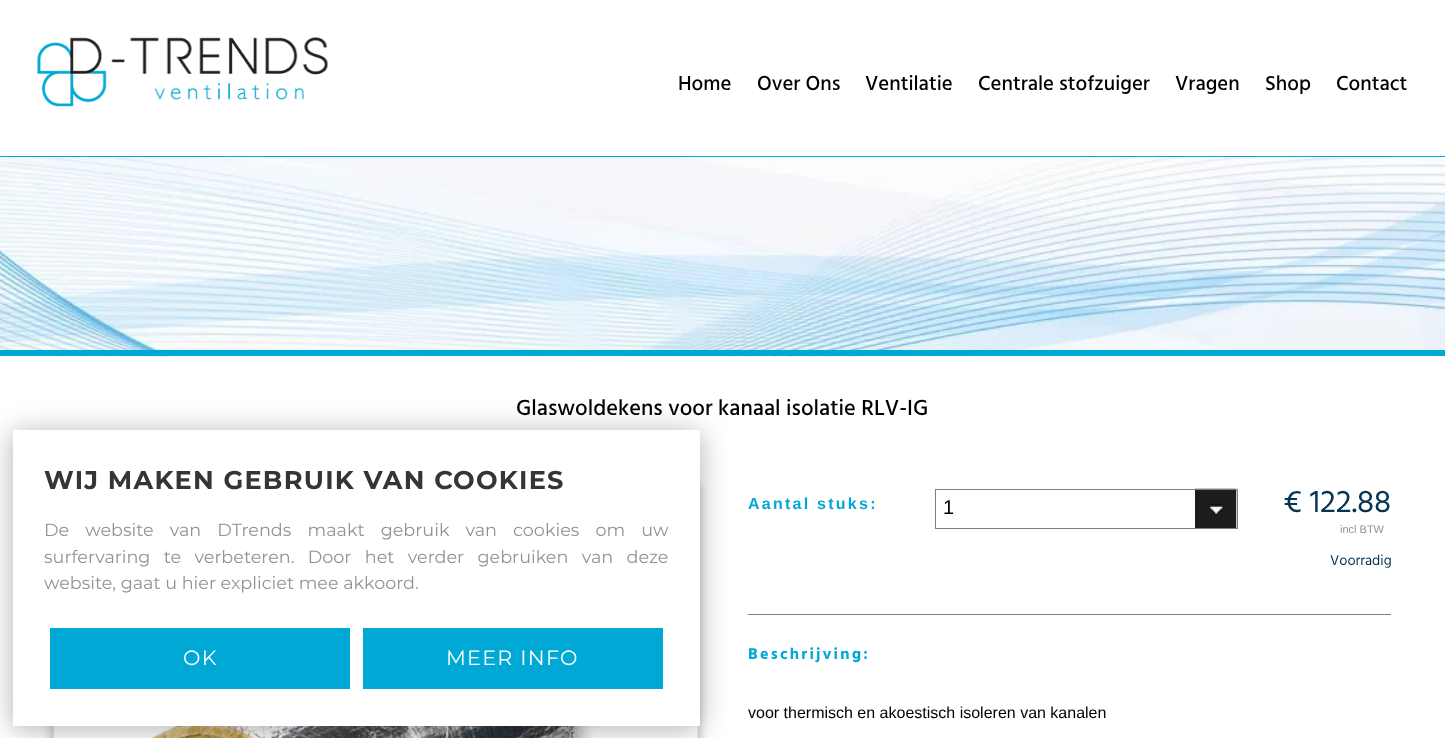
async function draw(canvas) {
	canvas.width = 1445;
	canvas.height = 738;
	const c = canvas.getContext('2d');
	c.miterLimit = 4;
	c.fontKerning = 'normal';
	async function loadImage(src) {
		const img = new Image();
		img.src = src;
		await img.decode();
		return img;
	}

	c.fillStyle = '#fff';
	c.fillRect(0, 0, 1445, 738);
	c.fillStyle = '#00a8d5';
	c.fillRect(0, 156, 1445, 1);
	c.drawImage(await loadImage('img1.png'), 37, 37, 291, 70);
	c.font = '500 20.75px Hind';
	c.fillStyle = '#000';
	for (const [text, x, y] of [
		['Home', 678, 90],
		['Over Ons', 757, 90],
		['Ventilatie', 865, 90],
		['Centrale stofzuiger', 978, 90],
		['Vragen', 1175, 90],
		['Shop', 1265, 90],
		['Contact', 1336, 90],
	]) {
		c.fillText(text, x, y);
	}
	c.fillStyle = '#0000003b';
	c.filter = 'blur(4px)';
	c.beginPath();
	c.rect(51, 486, 649, 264);
	c.fill();
	c.filter = 'none';
	c.drawImage(await loadImage('img3.png'), 53, 726, 645, 12);
	c.fillStyle = '#3d3d3d69';
	c.filter = 'blur(14px)';
	c.beginPath();
	c.rect(13, 433, 687, 296);
	c.fill();
	c.filter = 'none';
	c.fillStyle = '#fff';
	c.fillRect(13, 430, 687, 296);
	c.letterSpacing = '1.25px';
	c.font = 'bold 25.6px Montserrat';
	c.fillStyle = '#353535';
	c.fillText('WIJ MAKEN GEBRUIK VAN COOKIES', 44, 489);
	c.letterSpacing = '0px';
	c.wordSpacing = '11.5px';
	c.font = '17.6px Montserrat';
	c.fillStyle = '#939393';
	c.fillText('De website van DTrends maakt gebruik van cookies om uw', 44, 536);
	c.wordSpacing = '8.75px';
	c.fillText('surfervaring te verbeteren. Door het verder gebruiken van deze', 44, 563);
	c.wordSpacing = '0px';
	c.fillText('website, gaat u hier expliciet mee akkoord.', 44, 589);
	c.fillStyle = '#00a8d5';
	c.fillRect(50, 628, 300, 61);
	c.letterSpacing = '1.25px';
	c.font = '20.75px Montserrat';
	c.fillStyle = '#fefefe';
	c.fillText('OK', 183, 665);
	c.fillStyle = '#00a8d5';
	c.fillRect(363, 628, 300, 61);
	c.fillStyle = '#fefefe';
	c.fillText('MEER INFO', 446, 665);
	c.drawImage(await loadImage('img2.png'), 0, 158, 1445, 199);
	c.fillStyle = '#00a8d5';
	c.fillRect(0, 350, 1445, 6);
	c.letterSpacing = '0px';
	c.font = '500 22.4px Hind';
	c.fillStyle = '#000';
	c.fillText('Glaswoldekens voor kanaal isolatie RLV-IG', 516, 415);
	c.fillStyle = '#808080';
	c.fillRect(748, 614, 643, 1);
	c.letterSpacing = '2.25px';
	c.font = 'bold 16px Liberation Sans';
	c.fillStyle = '#00a8d5';
	c.fillText('Aantal stuks:', 748, 509);
	c.drawImage(await loadImage('img4.png'), 1195, 488, 42, 40);
	c.strokeStyle = '#808080';
	c.strokeRect(935.5, 489.5, 302, 39);
	c.letterSpacing = '0px';
	c.font = '20px Liberation Sans';
	c.fillStyle = '#000';
	c.fillText('1', 943, 514);
	c.font = '32px Hind';
	c.fillStyle = '#053353';
	c.fillText('€ 122.88', 1283, 512);
	c.font = '11px Liberation Sans';
	c.fillStyle = '#939393';
	c.fillText('incl BTW', 1340, 533);
	c.font = '14.5px Hind';
	c.fillStyle = '#053353';
	c.fillText('Voorradig', 1330, 565);
	c.letterSpacing = '2.25px';
	c.font = 'bold 16px Hind';
	c.fillStyle = '#00a8d5';
	c.fillText('Beschrijving:', 748, 659);
	c.letterSpacing = '0px';
	c.font = '16px Liberation Sans';
	c.fillStyle = '#000';
	c.fillText('voor thermisch en akoestisch isoleren van kanalen', 748, 718);
}

draw(document.querySelector('canvas'));
